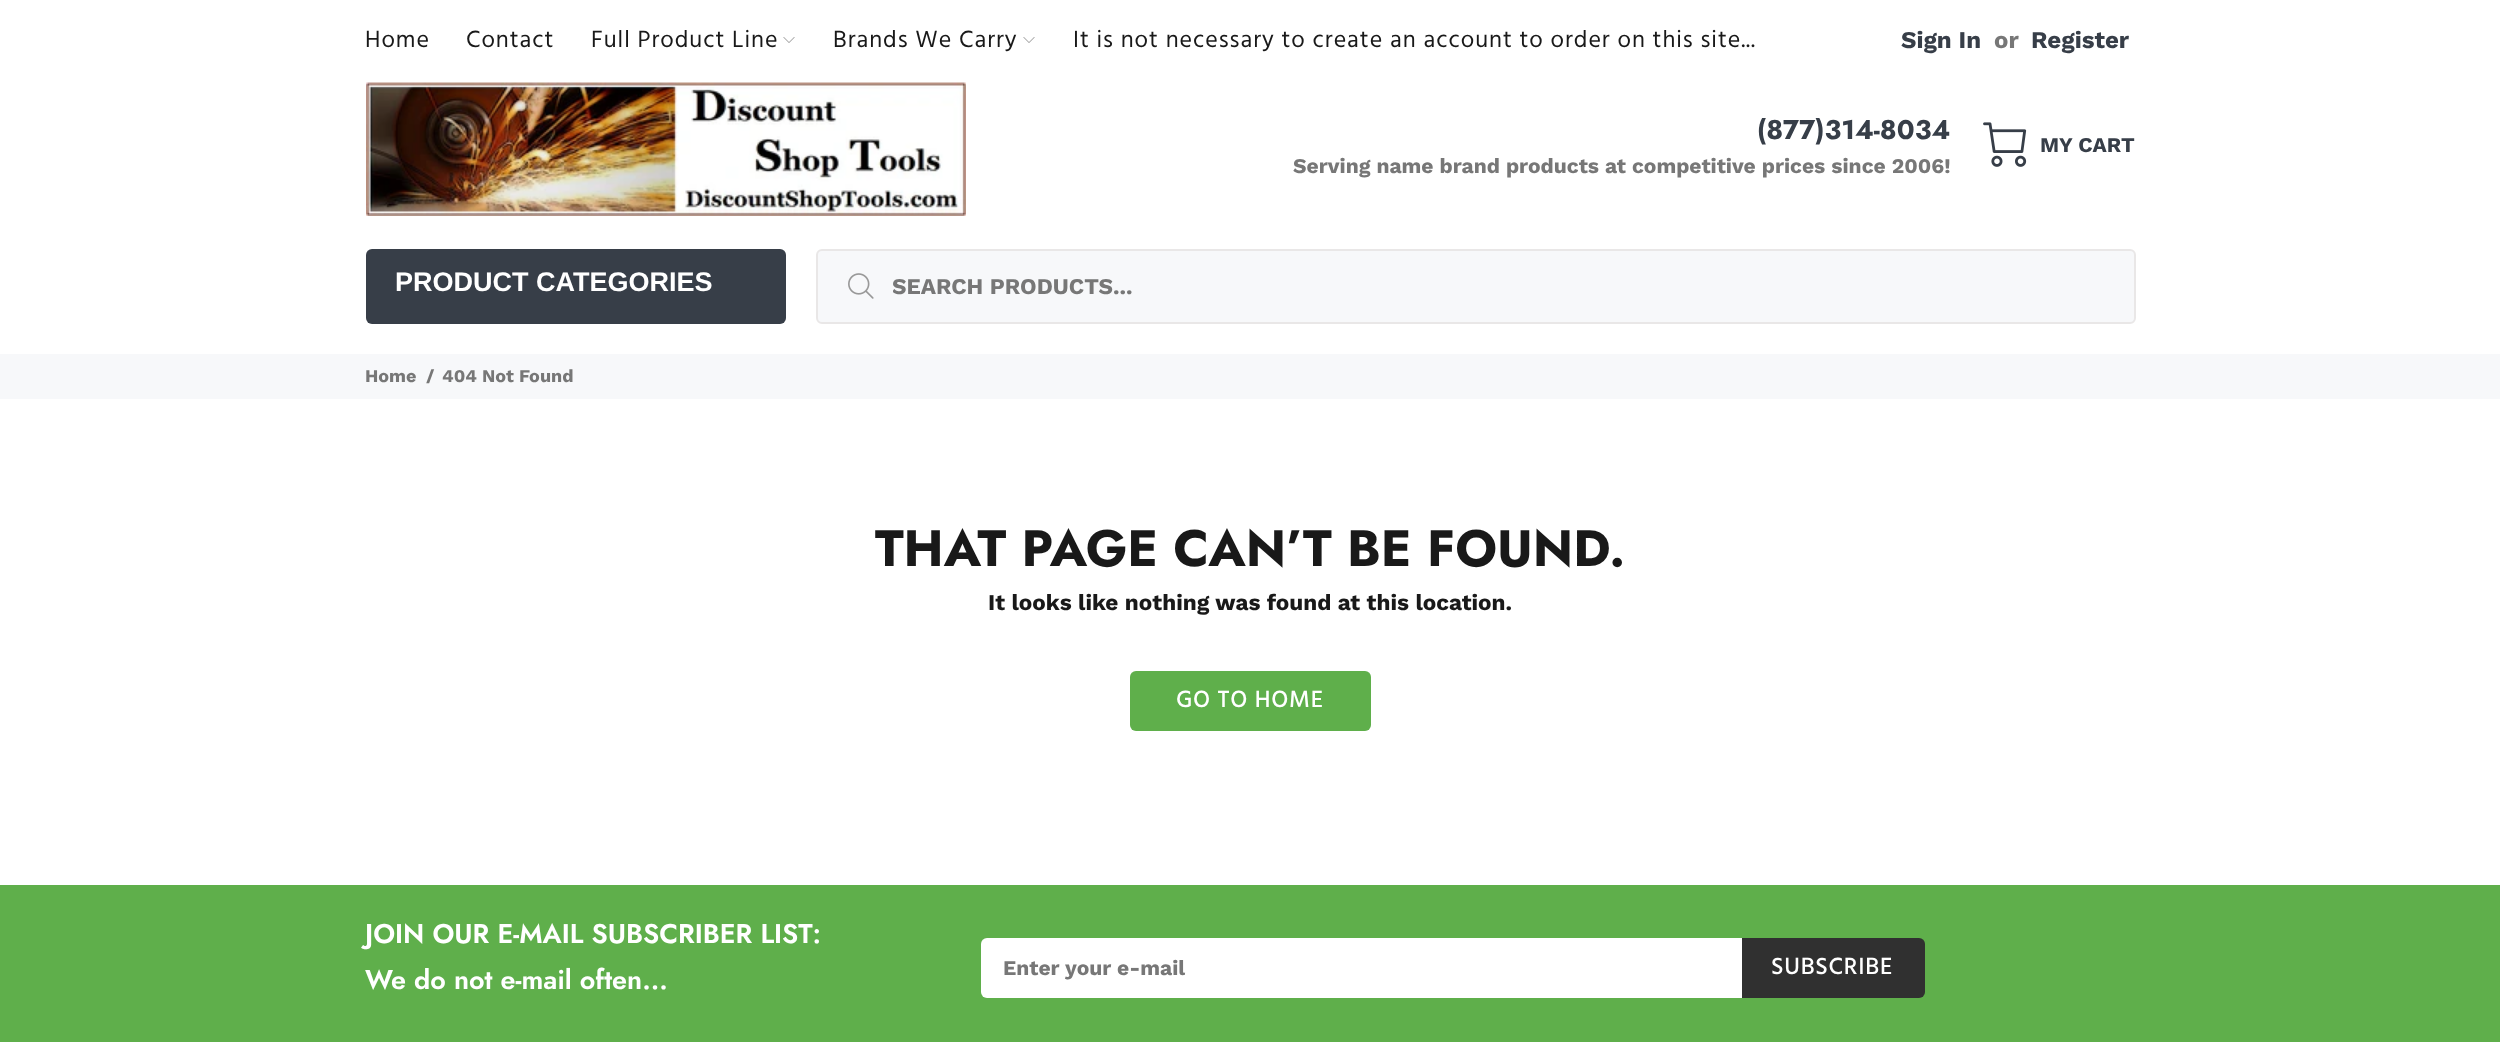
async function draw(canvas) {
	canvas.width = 2500;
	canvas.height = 1042;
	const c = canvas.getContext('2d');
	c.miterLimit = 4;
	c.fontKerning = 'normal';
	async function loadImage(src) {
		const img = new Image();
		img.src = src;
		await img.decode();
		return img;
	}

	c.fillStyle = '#fff';
	c.fillRect(0, 0, 2500, 1042);
	c.letterSpacing = '0.95px';
	c.font = '24px Hind';
	c.fillStyle = '#191919';
	for (const [text, x, y] of [
		['Home', 365, 47],
		['Contact', 466, 47],
		['Full Product Line', 591, 47],
	]) {
		c.fillText(text, x, y);
	}
	c.drawImage(await loadImage('img1.png'), 783, 37, 12, 6);
	c.fillText('Brands We Carry', 833, 47);
	c.drawImage(await loadImage('img1.png'), 1023, 37, 12, 6);
	c.fillText('It is not necessary to create an account to order on this site...', 1073, 47);
	c.letterSpacing = '0px';
	c.font = 'bold 24px Work Sans';
	c.fillStyle = '#373e48';
	c.fillText('Sign In', 1901, 48);
	c.fillStyle = '#777';
	c.fillText('or', 1994, 48);
	c.fillStyle = '#373e48';
	c.fillText('Register', 2031, 48);
	c.drawImage(await loadImage('img2.png'), 366, 82, 600, 134);
	c.font = 'bold 27px Jost';
	c.fillText('(877)314-8034', 1757, 139);
	c.font = 'bold 21px Work Sans';
	c.fillStyle = '#777';
	c.fillText('Serving name brand products at competitive prices since 2006!', 1293, 173);
	c.drawImage(await loadImage('img3.png'), 1983, 122, 44, 45);
	c.fillStyle = '#373e48';
	c.fillText('MY CART', 2040, 152);
	c.beginPath();
	c.roundRect(366, 249, 420, 75, 6);
	c.fill();
	c.font = 'bold 27px Liberation Sans';
	c.fillStyle = '#fff';
	c.fillText('PRODUCT CATEGORIES', 395, 291);
	c.fillStyle = '#f7f8fa';
	c.beginPath();
	c.roundRect(817, 250, 1318, 73, 5);
	c.fill();
	c.strokeStyle = '#e9e7e7';
	c.lineWidth = 2;
	c.stroke();
	c.drawImage(await loadImage('img4.png'), 848, 273, 26, 26);
	c.save();
	c.beginPath();
	c.rect(893, 273, 1221, 27);
	c.clip();
	c.font = 'bold 22.5px Work Sans';
	c.fillStyle = '#777';
	c.fillText('SEARCH PRODUCTS...', 892, 294);
	c.restore();
	c.fillRect(0, 354, 2500, 45);
	c.font = 'bold 18px Work Sans';
	c.fillStyle = '#777';
	for (const [text, x, y] of [
		['Home', 365, 382],
		['/', 426, 382],
		['404 Not Found', 442, 382],
	]) {
		c.fillText(text, x, y);
	}
	c.font = 'bold 51px Jost';
	c.fillStyle = '#191919';
	c.fillText('THAT PAGE CAN’T BE FOUND.', 875, 566);
	c.font = 'bold 22.5px Work Sans';
	c.fillText('It looks like nothing was found at this location.', 988, 610);
	c.fillStyle = '#5faf4b';
	c.beginPath();
	c.roundRect(1130, 671, 241, 60, 6);
	c.fill();
	c.letterSpacing = '0.75px';
	c.font = '500 24px Hind';
	c.fillStyle = '#fff';
	c.fillText('GO TO HOME', 1176, 707);
	c.fillStyle = '#5faf4b';
	c.fillRect(0, 885, 2500, 157);
	c.letterSpacing = '0px';
	c.font = '600 27px Jost';
	c.fillStyle = '#fff';
	c.fillText('JOIN OUR E-MAIL SUBSCRIBER LIST:', 365, 943);
	c.fillText('We do not e-mail often...', 365, 989);
	c.beginPath();
	c.roundRect(981, 938, 761, 60, [6, 0, 0, 6]);
	c.fill();
	c.font = 'bold 21px Work Sans';
	c.fillStyle = '#777';
	c.fillText('Enter your e-mail', 1003, 975);
	c.fillStyle = '#303030';
	c.beginPath();
	c.roundRect(1742, 938, 183, 60, [0, 6, 6, 0]);
	c.fill();
	c.letterSpacing = '0.75px';
	c.font = '500 24px Hind';
	c.fillStyle = '#fff';
	c.fillText('SUBSCRIBE', 1771, 974);
}

draw(document.querySelector('canvas'));
